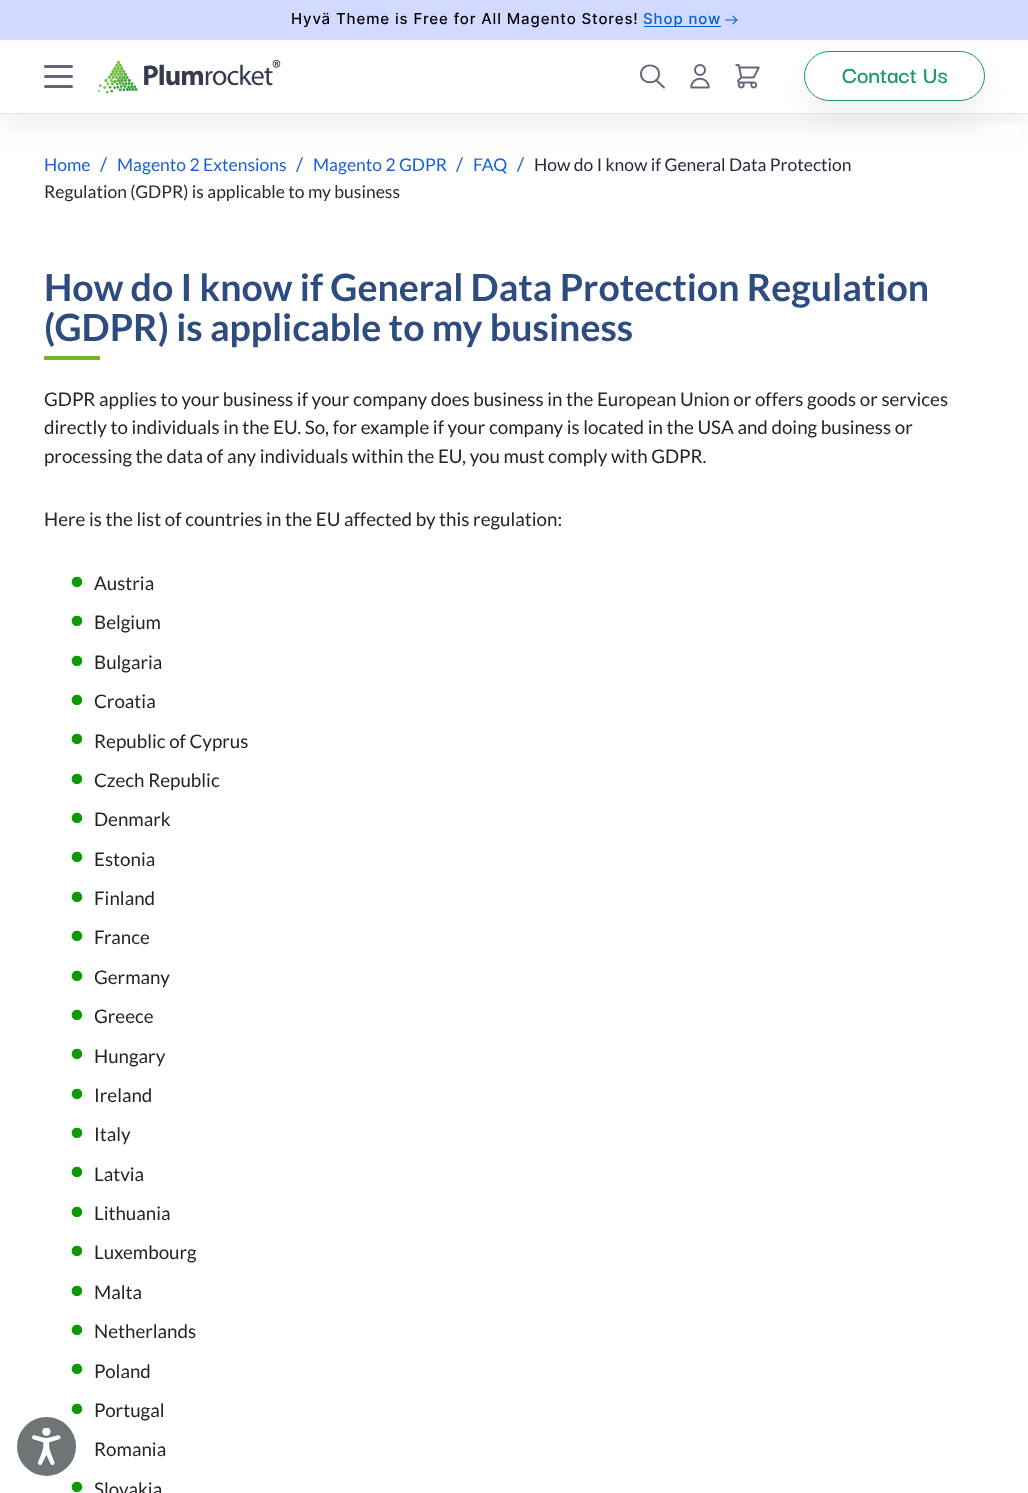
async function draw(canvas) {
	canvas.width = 1028;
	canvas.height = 1493;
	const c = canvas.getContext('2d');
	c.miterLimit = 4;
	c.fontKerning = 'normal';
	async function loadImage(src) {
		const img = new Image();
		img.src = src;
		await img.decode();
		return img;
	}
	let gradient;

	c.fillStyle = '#fff';
	c.fillRect(0, 0, 1028, 1493);
	c.fillStyle = '#0000000d';
	c.filter = 'blur(12.5px)';
	c.beginPath();
	c.rect(0, 56, 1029, 74);
	c.fill();
	c.filter = 'none';
	c.fillStyle = '#d2dbff';
	c.fillRect(0, 0, 1028, 40);
	c.letterSpacing = '0.9px';
	c.font = '500 15px Inter';
	c.fillStyle = '#000';
	c.fillText('Hyvä Theme is Free for All Magento Stores!', 291, 24);
	c.fillStyle = '#0061d0';
	c.fillRect(644, 26, 77, 1);
	c.fillText('Shop now', 643, 24);
	c.drawImage(await loadImage('img1.png'), 725, 15, 13, 10);
	c.fillStyle = '#fff';
	c.fillRect(0, 46, 1028, 67);
	c.fillStyle = '#e6e6e6';
	c.fillRect(0, 113, 1028, 1);
	c.fillStyle = '#626577';
	c.beginPath();
	c.roundRect(44, 65, 29, 3, 1.5);
	c.fill();
	c.beginPath();
	c.roundRect(44, 75, 29, 3, 1.5);
	c.fill();
	c.beginPath();
	c.roundRect(44, 85, 29, 3, 1.5);
	c.fill();
	c.drawImage(await loadImage('img2.png'), 98, 60, 183, 34);
	c.beginPath();
	c.moveTo(664, 87.5);
	c.lineTo(656, 80);
	c.moveTo(659, 74);
	c.bezierCurveTo(659, 85, 641, 85, 641, 74);
	c.bezierCurveTo(641, 62.5, 659, 62.5, 659, 74);
	c.closePath();
	c.strokeStyle = '#626577';
	c.lineWidth = 1.9;
	c.lineCap = 'round';
	c.lineJoin = 'round';
	c.stroke();
	c.drawImage(await loadImage('img3.png'), 690, 64, 20, 25);
	c.drawImage(await loadImage('img4.png'), 735, 64, 25, 25);
	c.save();
	c.beginPath();
	c.moveTo(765, 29);
	c.lineTo(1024, 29);
	c.lineTo(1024, 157);
	c.lineTo(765, 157);
	c.closePath();
	c.moveTo(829, 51);
	c.lineTo(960, 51);
	c.bezierCurveTo(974, 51, 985, 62, 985, 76);
	c.bezierCurveTo(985, 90, 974, 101, 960, 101);
	c.lineTo(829, 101);
	c.bezierCurveTo(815, 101, 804, 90, 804, 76);
	c.bezierCurveTo(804, 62, 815, 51, 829, 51);
	c.closePath();
	c.clip('evenodd');
	c.fillStyle = '#0000000d';
	c.filter = 'blur(12.5px)';
	c.beginPath();
	c.roundRect(804, 68, 181, 50, 25);
	c.fill();
	c.filter = 'none';
	c.restore();
	c.beginPath();
	c.roundRect(804.5, 51.5, 180, 49, 24.5);
	c.strokeStyle = '#1b9769';
	c.lineWidth = 1;
	c.lineJoin = 'miter';
	c.stroke();
	c.letterSpacing = '0px';
	c.font = '600 25px Darker Grotesque';
	c.fillStyle = '#1b9769';
	c.fillText('Contact Us', 842, 83);
	gradient = c.createLinearGradient(968, 154, 1018, 154);
	gradient.addColorStop(0, '#ffffff00');
	gradient.addColorStop(1, '#fff');
	c.fillStyle = gradient;
	c.fillRect(980, 123, 38, 16);
	c.font = '17.5px Lato';
	c.fillStyle = '#1861da';
	c.fillText('Home', 44, 171);
	c.font = '18.75px Lato';
	c.fillText('/', 100, 171);
	c.font = '17.5px Lato';
	c.fillText('Magento 2 Extensions', 117, 171);
	c.font = '18.75px Lato';
	c.fillText('/', 296, 171);
	c.font = '17.5px Lato';
	c.fillText('Magento 2 GDPR', 313, 171);
	c.font = '18.75px Lato';
	c.fillText('/', 456, 171);
	c.font = '17.5px Lato';
	c.fillText('FAQ', 473, 171);
	c.font = '18.75px Lato';
	c.fillText('/', 517, 171);
	c.font = '17.5px Lato';
	c.fillStyle = '#27293b';
	c.fillText('How do I know if General Data Protection', 534, 171);
	c.fillText('Regulation (GDPR) is applicable to my business', 44, 198);
	c.font = 'bold 37.5px Lato';
	c.fillStyle = '#2f4c81';
	c.fillText('How do I know if General Data Protection Regulation', 44, 301);
	c.fillText('(GDPR) is applicable to my business', 44, 341);
	c.fillStyle = '#72b621';
	c.fillRect(44, 356, 56, 4);
	c.font = '18.75px Lato';
	c.fillStyle = '#212429';
	for (const [text, x, y] of [
		['GDPR applies to your business if your company does business in the European Union or offers goods or services', 44, 406],
		['directly to individuals in the EU. So, for example if your company is located in the USA and doing business or', 44, 434],
		['processing the data of any individuals within the EU, you must comply with GDPR.', 44, 463],
		['Here is the list of countries in the EU affected by this regulation:', 44, 526],
	]) {
		c.fillText(text, x, y);
	}
	c.font = 'bold 24px Lato';
	c.fillStyle = '#0b9a02';
	c.fillText('•', 70, 589);
	c.font = '18.75px Lato';
	c.fillStyle = '#212429';
	c.fillText('Austria', 94, 590);
	c.font = 'bold 24px Lato';
	c.fillStyle = '#0b9a02';
	c.fillText('•', 70, 628);
	c.font = '18.75px Lato';
	c.fillStyle = '#212429';
	c.fillText('Belgium', 94, 629);
	c.font = 'bold 24px Lato';
	c.fillStyle = '#0b9a02';
	c.fillText('•', 70, 668);
	c.font = '18.75px Lato';
	c.fillStyle = '#212429';
	c.fillText('Bulgaria', 94, 669);
	c.font = 'bold 24px Lato';
	c.fillStyle = '#0b9a02';
	c.fillText('•', 70, 707);
	c.font = '18.75px Lato';
	c.fillStyle = '#212429';
	c.fillText('Croatia', 94, 708);
	c.font = 'bold 24px Lato';
	c.fillStyle = '#0b9a02';
	c.fillText('•', 70, 746);
	c.font = '18.75px Lato';
	c.fillStyle = '#212429';
	c.fillText('Republic of Cyprus', 94, 748);
	c.font = 'bold 24px Lato';
	c.fillStyle = '#0b9a02';
	c.fillText('•', 70, 786);
	c.font = '18.75px Lato';
	c.fillStyle = '#212429';
	c.fillText('Czech Republic', 94, 787);
	c.font = 'bold 24px Lato';
	c.fillStyle = '#0b9a02';
	c.fillText('•', 70, 825);
	c.font = '18.75px Lato';
	c.fillStyle = '#212429';
	c.fillText('Denmark', 94, 826);
	c.font = 'bold 24px Lato';
	c.fillStyle = '#0b9a02';
	c.fillText('•', 70, 864);
	c.font = '18.75px Lato';
	c.fillStyle = '#212429';
	c.fillText('Estonia', 94, 866);
	c.font = 'bold 24px Lato';
	c.fillStyle = '#0b9a02';
	c.fillText('•', 70, 904);
	c.font = '18.75px Lato';
	c.fillStyle = '#212429';
	c.fillText('Finland', 94, 905);
	c.font = 'bold 24px Lato';
	c.fillStyle = '#0b9a02';
	c.fillText('•', 70, 943);
	c.font = '18.75px Lato';
	c.fillStyle = '#212429';
	c.fillText('France', 94, 944);
	c.font = 'bold 24px Lato';
	c.fillStyle = '#0b9a02';
	c.fillText('•', 70, 983);
	c.font = '18.75px Lato';
	c.fillStyle = '#212429';
	c.fillText('Germany', 94, 984);
	c.font = 'bold 24px Lato';
	c.fillStyle = '#0b9a02';
	c.fillText('•', 70, 1022);
	c.font = '18.75px Lato';
	c.fillStyle = '#212429';
	c.fillText('Greece', 94, 1023);
	c.font = 'bold 24px Lato';
	c.fillStyle = '#0b9a02';
	c.fillText('•', 70, 1061);
	c.font = '18.75px Lato';
	c.fillStyle = '#212429';
	c.fillText('Hungary', 94, 1063);
	c.font = 'bold 24px Lato';
	c.fillStyle = '#0b9a02';
	c.fillText('•', 70, 1101);
	c.font = '18.75px Lato';
	c.fillStyle = '#212429';
	c.fillText('Ireland', 94, 1102);
	c.font = 'bold 24px Lato';
	c.fillStyle = '#0b9a02';
	c.fillText('•', 70, 1140);
	c.font = '18.75px Lato';
	c.fillStyle = '#212429';
	c.fillText('Italy', 94, 1141);
	c.font = 'bold 24px Lato';
	c.fillStyle = '#0b9a02';
	c.fillText('•', 70, 1179);
	c.font = '18.75px Lato';
	c.fillStyle = '#212429';
	c.fillText('Latvia', 94, 1181);
	c.font = 'bold 24px Lato';
	c.fillStyle = '#0b9a02';
	c.fillText('•', 70, 1219);
	c.font = '18.75px Lato';
	c.fillStyle = '#212429';
	c.fillText('Lithuania', 94, 1220);
	c.font = 'bold 24px Lato';
	c.fillStyle = '#0b9a02';
	c.fillText('•', 70, 1258);
	c.font = '18.75px Lato';
	c.fillStyle = '#212429';
	c.fillText('Luxembourg', 94, 1259);
	c.font = 'bold 24px Lato';
	c.fillStyle = '#0b9a02';
	c.fillText('•', 70, 1298);
	c.font = '18.75px Lato';
	c.fillStyle = '#212429';
	c.fillText('Malta', 94, 1299);
	c.font = 'bold 24px Lato';
	c.fillStyle = '#0b9a02';
	c.fillText('•', 70, 1337);
	c.font = '18.75px Lato';
	c.fillStyle = '#212429';
	c.fillText('Netherlands', 94, 1338);
	c.font = 'bold 24px Lato';
	c.fillStyle = '#0b9a02';
	c.fillText('•', 70, 1376);
	c.font = '18.75px Lato';
	c.fillStyle = '#212429';
	c.fillText('Poland', 94, 1378);
	c.font = 'bold 24px Lato';
	c.fillStyle = '#0b9a02';
	c.fillText('•', 70, 1416);
	c.font = '18.75px Lato';
	c.fillStyle = '#212429';
	c.fillText('Portugal', 94, 1417);
	c.fillText('Romania', 94, 1456);
	c.font = 'bold 24px Lato';
	c.fillStyle = '#0b9a02';
	c.fillText('•', 70, 1494);
	c.font = '18.75px Lato';
	c.fillStyle = '#212429';
	c.fillText('Slovakia', 94, 1496);
	c.fillStyle = '#6e7577';
	c.beginPath();
	c.arc(46.5, 1446.5, 31.5, 0, 2 * Math.PI);
	c.fill();
	c.strokeStyle = '#fff';
	c.lineWidth = 4;
	c.stroke();
	c.drawImage(await loadImage('img5.png'), 32, 1428, 29, 37);
}

draw(document.querySelector('canvas'));
